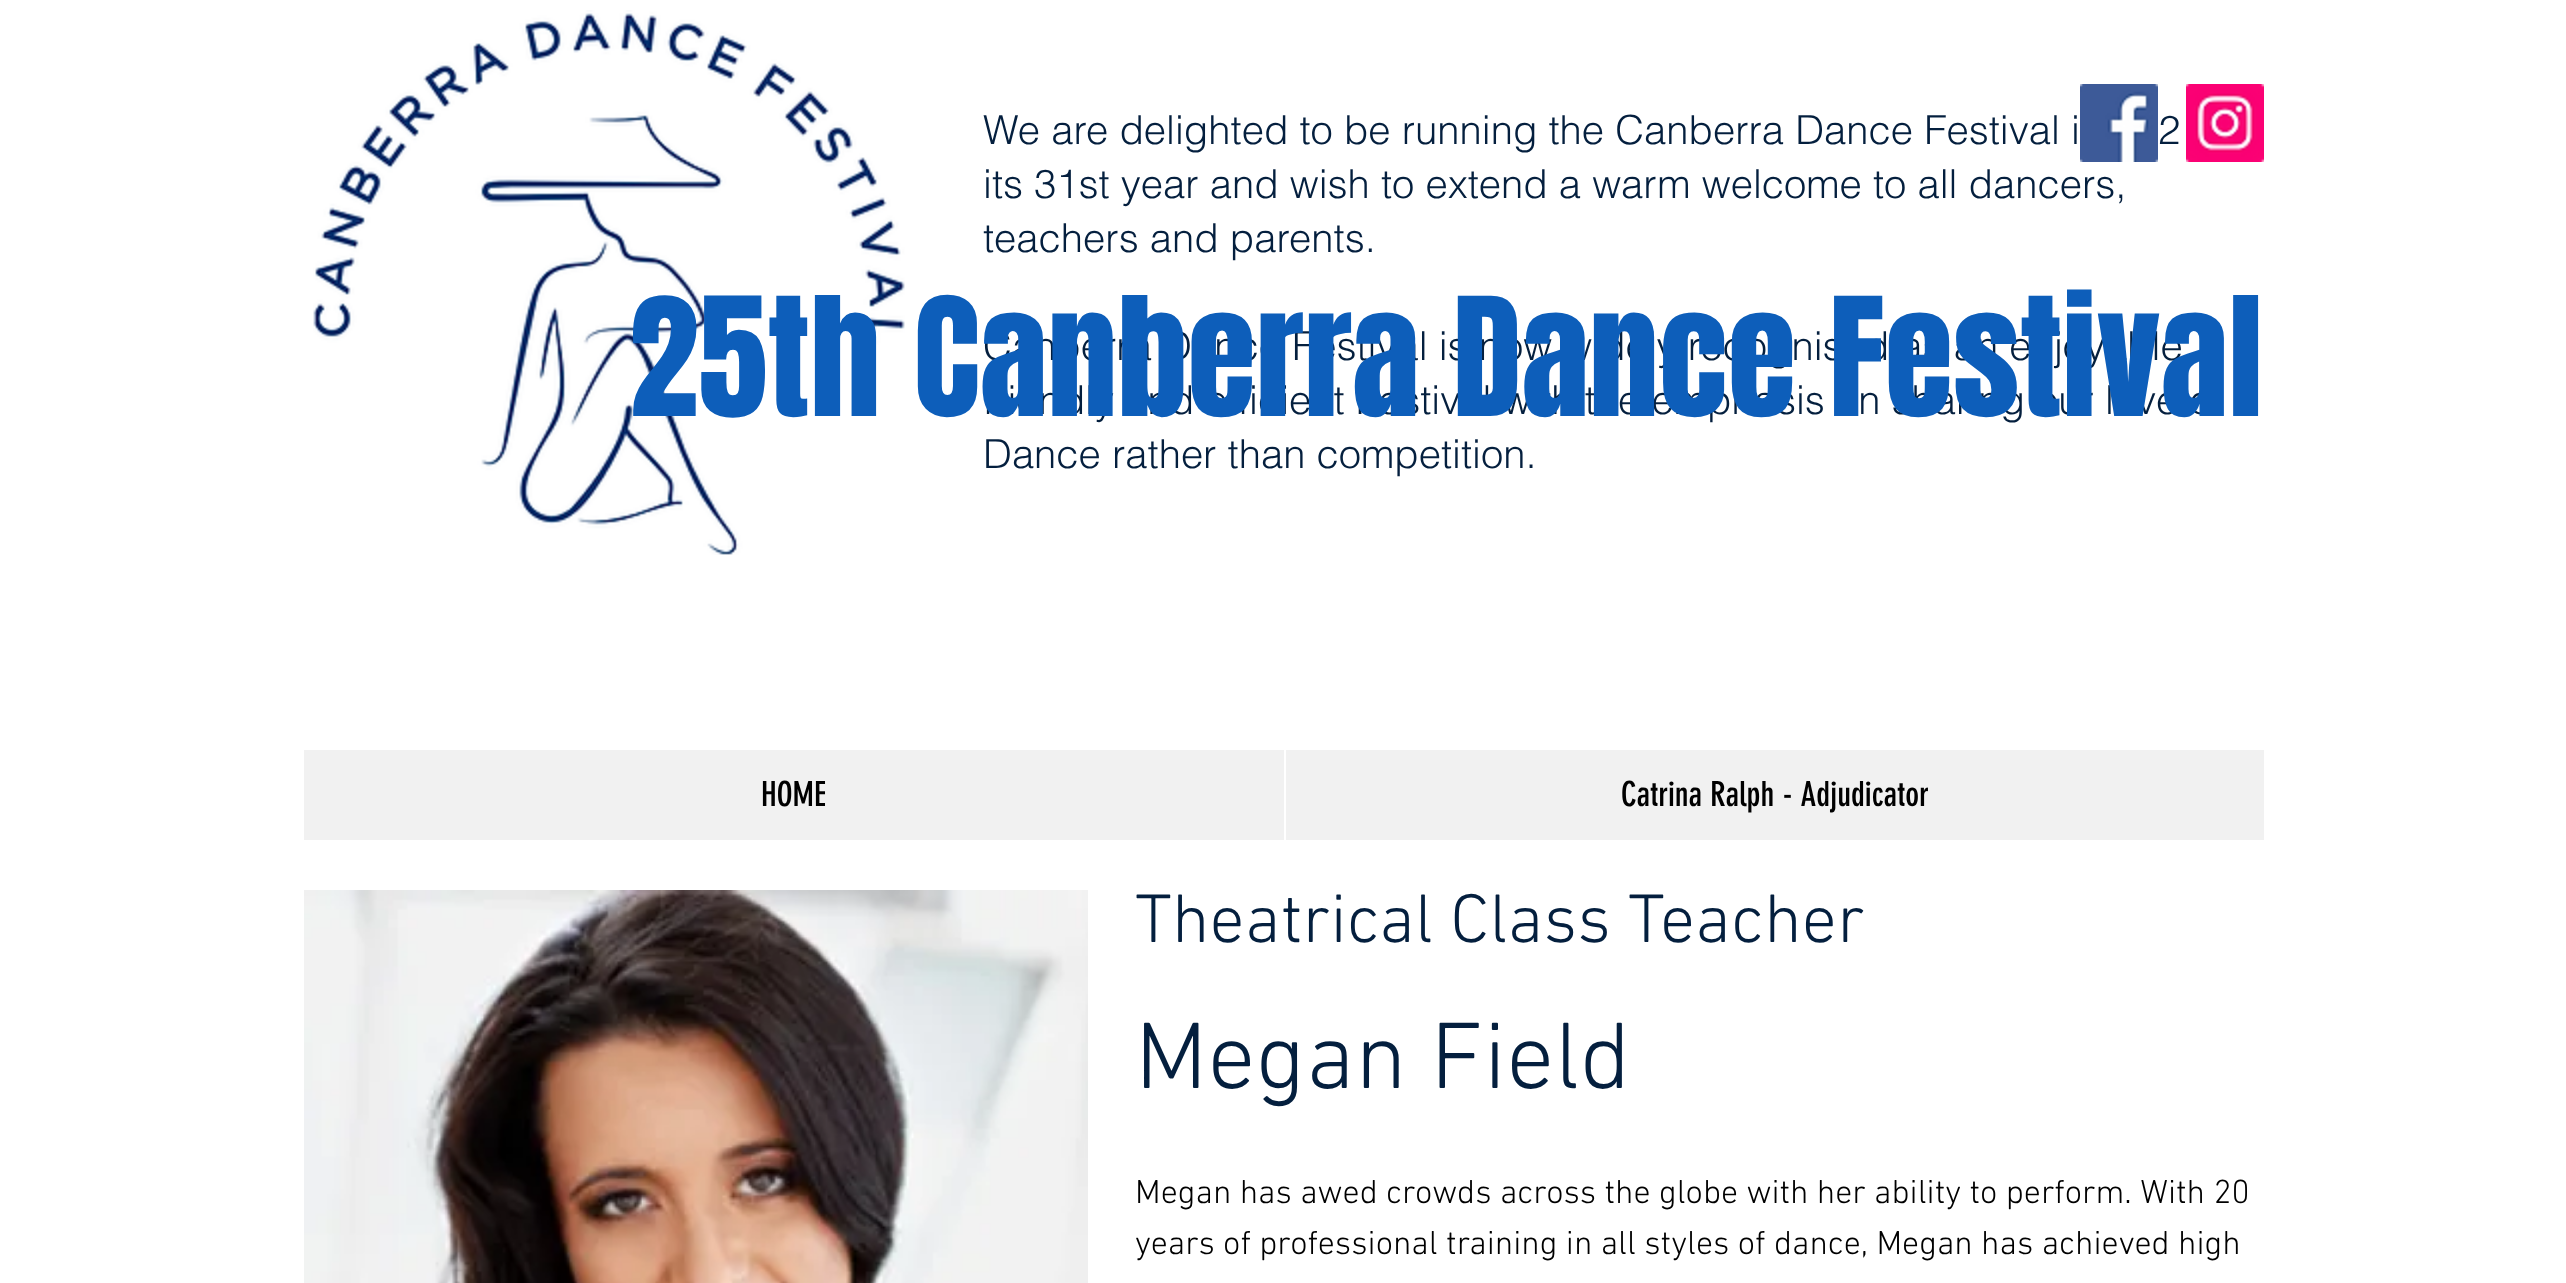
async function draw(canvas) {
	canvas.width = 2566;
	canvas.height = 1283;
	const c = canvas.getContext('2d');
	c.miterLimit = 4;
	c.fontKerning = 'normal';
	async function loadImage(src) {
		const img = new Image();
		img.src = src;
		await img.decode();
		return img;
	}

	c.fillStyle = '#fff';
	c.fillRect(0, 0, 2566, 1283);
	c.drawImage(await loadImage('img1.png'), 313, 10, 592, 545);
	c.font = '300 40px helvetica';
	c.fillStyle = '#041f3e';
	for (const [text, x, y] of [
		['We are delighted to be running the Canberra Dance Festival i', 983, 144],
		['2', 2158, 144],
		['its 31st year and wish to extend a warm welcome to all dancers,', 983, 198],
		['teachers and parents.', 983, 252],
		['Canberra Dance Festival is now widely recognised as an enjoyable,', 983, 360],
		['friendly and efficient Festival with the emphasis on sharing our love of', 983, 414],
		['Dance rather than competition.', 983, 468],
	]) {
		c.fillText(text, x, y);
	}
	c.drawImage(await loadImage('img2.png'), 2080, 84, 78, 78);
	c.drawImage(await loadImage('img3.png'), 2186, 84, 78, 78);
	c.font = '140px Anton';
	c.fillStyle = '#0d5eba';
	c.fillText('25th Canberra Dance Festival', 629, 416);
	c.fillStyle = '#f1f1f1';
	c.fillRect(304, 750, 1960, 90);
	c.font = '34px "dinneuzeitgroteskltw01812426"';
	c.fillStyle = '#000';
	c.fillText('HOME', 761, 806);
	c.fillStyle = '#fff';
	c.fillRect(1284, 750, 2, 90);
	c.fillStyle = '#000';
	c.fillText('Catrina Ralph - Adjudicator', 1621, 806);
	c.drawImage(await loadImage('img4.png'), 304, 890, 784, 393);
	c.font = '300 70px "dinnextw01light"';
	c.fillStyle = '#041f3e';
	c.fillText('Theatrical Class Teacher', 1135, 942);
	c.font = '300 96px "dinnextw01light"';
	c.fillText('Megan Field', 1135, 1088);
	c.font = '300 34px "dinnextw01light"';
	c.fillStyle = '#000';
	c.fillText('Megan has awed crowds across the globe with her ability to perform. With 20', 1135, 1203);
	c.fillText('years of professional training in all styles of dance, Megan has achieved high', 1135, 1254);
}

draw(document.querySelector('canvas'));
